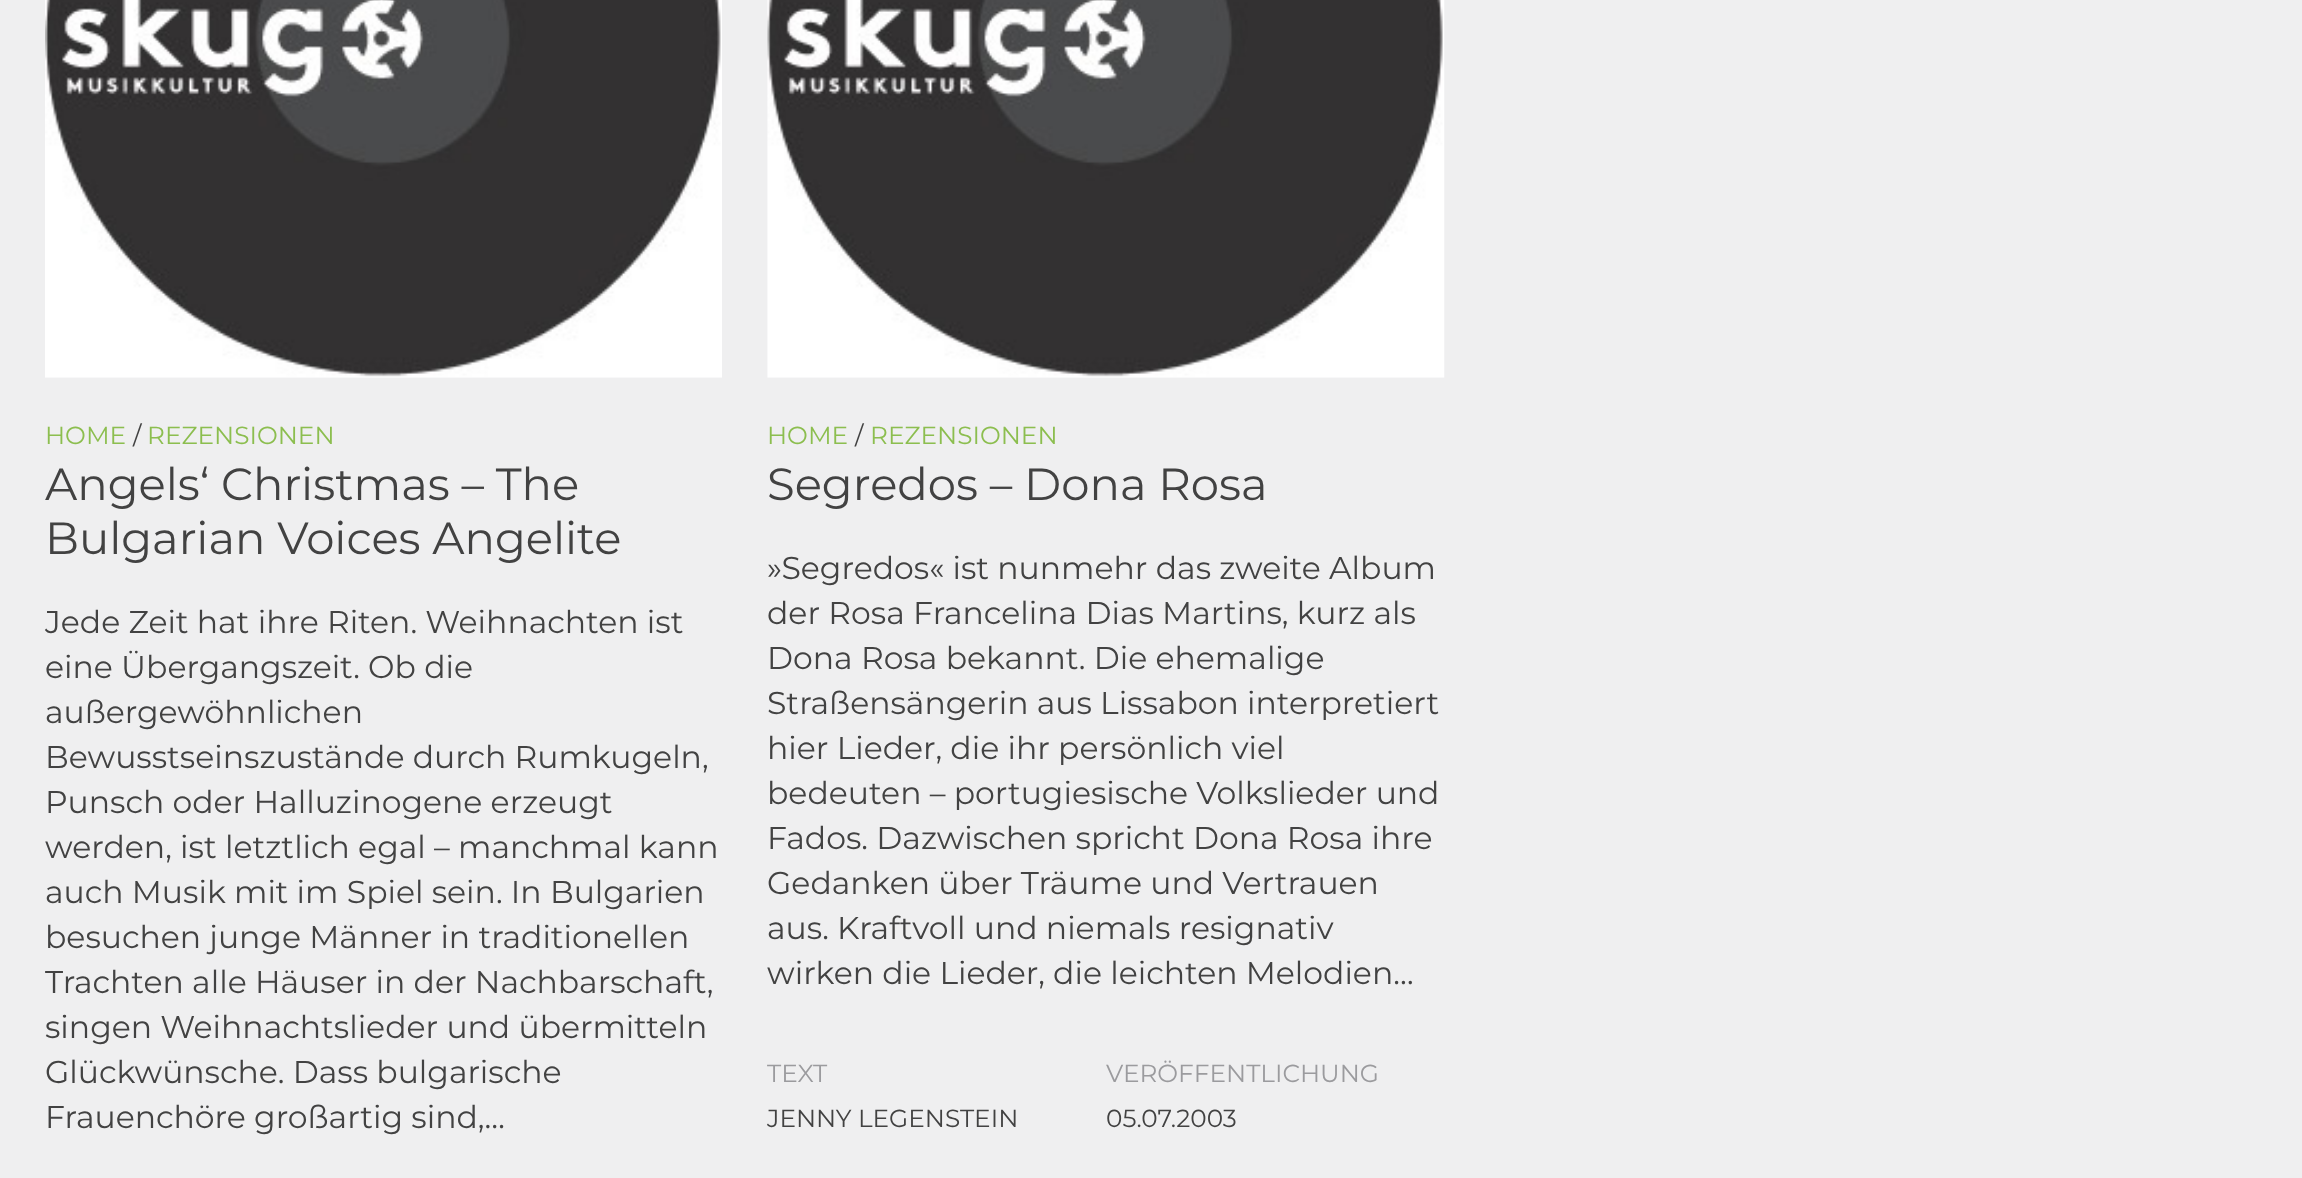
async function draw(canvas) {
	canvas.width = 2302;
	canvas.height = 1178;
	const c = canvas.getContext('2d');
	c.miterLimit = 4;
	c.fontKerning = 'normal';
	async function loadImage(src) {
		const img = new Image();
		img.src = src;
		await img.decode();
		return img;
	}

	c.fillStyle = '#efeff0';
	c.fillRect(0, 0, 2302, 1178);
	c.drawImage(await loadImage('img1.png'), 45, 0, 677, 378);
	c.font = '100 24.75px Montserrat';
	c.fillStyle = '#8cbe4f';
	c.fillText('HOME', 45, 444);
	c.fillStyle = '#424242';
	c.fillText('/', 133, 444);
	c.fillStyle = '#8cbe4f';
	c.fillText('REZENSIONEN', 147, 444);
	c.font = '100 45px Montserrat';
	c.fillStyle = '#424242';
	c.fillText('Angels‘ Christmas – The', 45, 500);
	c.fillText('Bulgarian Voices Angelite', 45, 554);
	c.font = '100 31.5px Montserrat';
	for (const [text, x, y] of [
		['Jede Zeit hat ihre Riten. Weihnachten ist', 45, 633],
		['eine Übergangszeit. Ob die', 45, 678],
		['außergewöhnlichen', 45, 723],
		['Bewusstseinszustände durch Rumkugeln,', 45, 768],
		['Punsch oder Halluzinogene erzeugt', 45, 813],
		['werden, ist letztlich egal – manchmal kann', 45, 858],
		['auch Musik mit im Spiel sein. In Bulgarien', 45, 903],
		['besuchen junge Männer in traditionellen', 45, 948],
		['Trachten alle Häuser in der Nachbarschaft,', 45, 993],
		['singen Weihnachtslieder und übermitteln', 45, 1038],
		['Glückwünsche. Dass bulgarische', 45, 1083],
		['Frauenchöre großartig sind,…', 45, 1128],
	]) {
		c.fillText(text, x, y);
	}
	c.drawImage(await loadImage('img2.png'), 767, 0, 678, 378);
	c.font = '100 24.75px Montserrat';
	c.fillStyle = '#8cbe4f';
	c.fillText('HOME', 767, 444);
	c.fillStyle = '#424242';
	c.fillText('/', 855, 444);
	c.fillStyle = '#8cbe4f';
	c.fillText('REZENSIONEN', 870, 444);
	c.font = '100 45px Montserrat';
	c.fillStyle = '#424242';
	c.fillText('Segredos – Dona Rosa', 767, 500);
	c.font = '100 31.5px Montserrat';
	for (const [text, x, y] of [
		['»Segredos« ist nunmehr das zweite Album', 767, 579],
		['der Rosa Francelina Dias Martins, kurz als', 767, 624],
		['Dona Rosa bekannt. Die ehemalige', 767, 669],
		['Straßensängerin aus Lissabon interpretiert', 767, 714],
		['hier Lieder, die ihr persönlich viel', 767, 759],
		['bedeuten – portugiesische Volkslieder und', 767, 804],
		['Fados. Dazwischen spricht Dona Rosa ihre', 767, 849],
		['Gedanken über Träume und Vertrauen', 767, 894],
		['aus. Kraftvoll und niemals resignativ', 767, 939],
		['wirken die Lieder, die leichten Melodien…', 767, 984],
	]) {
		c.fillText(text, x, y);
	}
	c.font = '100 24.75px Montserrat';
	c.fillStyle = '#9b9b9e';
	c.fillText('TEXT', 767, 1082);
	c.fillStyle = '#424242';
	c.fillText('JENNY LEGENSTEIN', 767, 1127);
	c.fillStyle = '#9b9b9e';
	c.fillText('VERÖFFENTLICHUNG', 1106, 1082);
	c.fillStyle = '#424242';
	c.fillText('05.07.2003', 1106, 1127);
}

draw(document.querySelector('canvas'));
